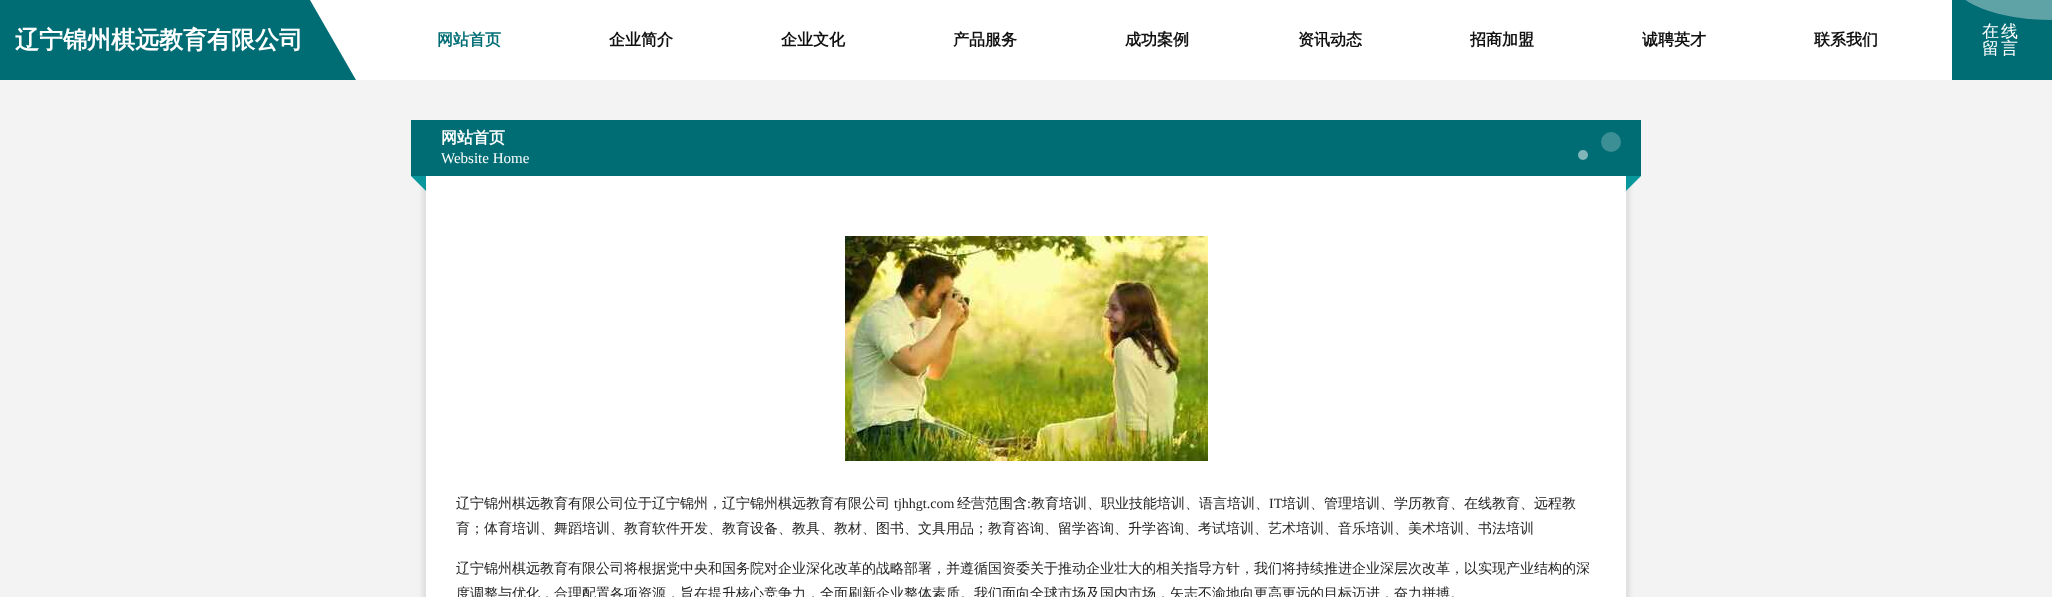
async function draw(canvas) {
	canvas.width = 2052;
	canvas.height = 597;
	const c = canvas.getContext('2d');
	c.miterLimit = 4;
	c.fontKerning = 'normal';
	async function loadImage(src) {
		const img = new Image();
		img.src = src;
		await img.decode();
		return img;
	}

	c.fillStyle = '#f3f3f3';
	c.fillRect(0, 0, 2052, 597);
	c.fillStyle = '#fff';
	c.fillRect(310, 0, 1642, 80);
	c.fillStyle = '#006d75';
	c.beginPath();
	c.moveTo(-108, 0);
	c.lineTo(310, 0);
	c.lineTo(356, 80);
	c.lineTo(-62, 80);
	c.closePath();
	c.fill();
	c.font = 'bold 24px WenQuanYi Zen Hei';
	c.fillStyle = '#fff';
	c.fillText('辽宁锦州棋远教育有限公司', 15, 48);
	c.font = 'bold 16px WenQuanYi Zen Hei';
	c.fillStyle = '#006d75';
	c.fillText('网站首页', 437, 45);
	c.fillStyle = '#111';
	for (const [text, x, y] of [
		['企业简介', 609, 45],
		['企业文化', 781, 45],
		['产品服务', 953, 45],
		['成功案例', 1125, 45],
		['资讯动态', 1298, 45],
		['招商加盟', 1470, 45],
		['诚聘英才', 1642, 45],
		['联系我们', 1814, 45],
	]) {
		c.fillText(text, x, y);
	}
	c.fillStyle = '#006d75';
	c.fillRect(1952, 0, 100, 80);
	c.fillStyle = '#4d999e';
	c.beginPath();
	c.ellipse(2052, -20, 100, 40, 0, 0, 2 * Math.PI);
	c.fill();
	c.fillStyle = '#ffffff1a';
	c.beginPath();
	c.ellipse(2052, -20, 100, 40, 0, 0, 2 * Math.PI);
	c.fill();
	c.letterSpacing = '2px';
	c.font = '500 17px WenQuanYi Zen Hei';
	c.fillStyle = '#fff';
	c.fillText('在线', 1982, 37);
	c.fillText('留言', 1982, 54);
	c.fillStyle = '#00000014';
	c.filter = 'blur(2px)';
	c.beginPath();
	c.rect(422, 170, 1208, 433);
	c.fill();
	c.filter = 'none';
	c.fillStyle = '#006d75';
	c.fillRect(411, 120, 1230, 56);
	c.letterSpacing = '0px';
	c.font = 'bold 16px WenQuanYi Zen Hei';
	c.fillStyle = '#fff';
	c.fillText('网站首页', 441, 143);
	c.fillStyle = '#3b8f95';
	c.beginPath();
	c.arc(1611, 142, 10, 0, 2 * Math.PI);
	c.fill();
	c.font = '15px Liberation Serif';
	c.fillStyle = '#fff';
	c.fillText('Website Home', 441, 163);
	c.fillStyle = '#80b6ba';
	c.beginPath();
	c.arc(1583, 155, 5, 0, 2 * Math.PI);
	c.fill();
	c.fillStyle = '#08979c';
	c.beginPath();
	c.moveTo(411, 176);
	c.lineTo(426, 176);
	c.lineTo(426, 191);
	c.closePath();
	c.fill();
	c.beginPath();
	c.moveTo(1626, 176);
	c.lineTo(1641, 176);
	c.lineTo(1626, 191);
	c.closePath();
	c.fill();
	c.fillStyle = '#fff';
	c.fillRect(426, 176, 1200, 421);
	c.drawImage(await loadImage('img1.png'), 845, 236, 363, 225);
	c.font = '500 14px WenQuanYi Zen Hei';
	c.fillStyle = '#232323';
	c.fillText('辽宁锦州棋远教育有限公司位于辽宁锦州，辽宁锦州棋远教育有限公司', 456, 508);
	c.font = '14px Liberation Serif';
	c.fillText('tjhhgt.com', 894, 508);
	c.font = '500 14px WenQuanYi Zen Hei';
	c.fillText('经营范围含', 957, 508);
	c.font = '14px Liberation Serif';
	c.fillText(':', 1027, 508);
	c.font = '500 14px WenQuanYi Zen Hei';
	c.fillText('教育培训、职业技能培训、语言培训、', 1031, 508);
	c.font = '14px Liberation Serif';
	c.fillText('IT', 1269, 508);
	c.font = '500 14px WenQuanYi Zen Hei';
	for (const [text, x, y] of [
		['培训、管理培训、学历教育、在线教育、远程教', 1282, 508],
		['育；体育培训、舞蹈培训、教育软件开发、教育设备、教具、教材、图书、文具用品；教育咨询、留学咨询、升学咨询、考试培训、艺术培训、音乐培训、美术培训、书法培训', 456, 533],
		['辽宁锦州棋远教育有限公司将根据党中央和国务院对企业深化改革的战略部署，并遵循国资委关于推动企业壮大的相关指导方针，我们将持续推进企业深层次改革，以实现产业结构的深', 456, 573],
		['度调整与优化，合理配置各项资源，旨在提升核心竞争力，全面刷新企业整体素质。我们面向全球市场及国内市场，矢志不渝地向更高更远的目标迈进，奋力拼搏。', 456, 598],
	]) {
		c.fillText(text, x, y);
	}
}

draw(document.querySelector('canvas'));
